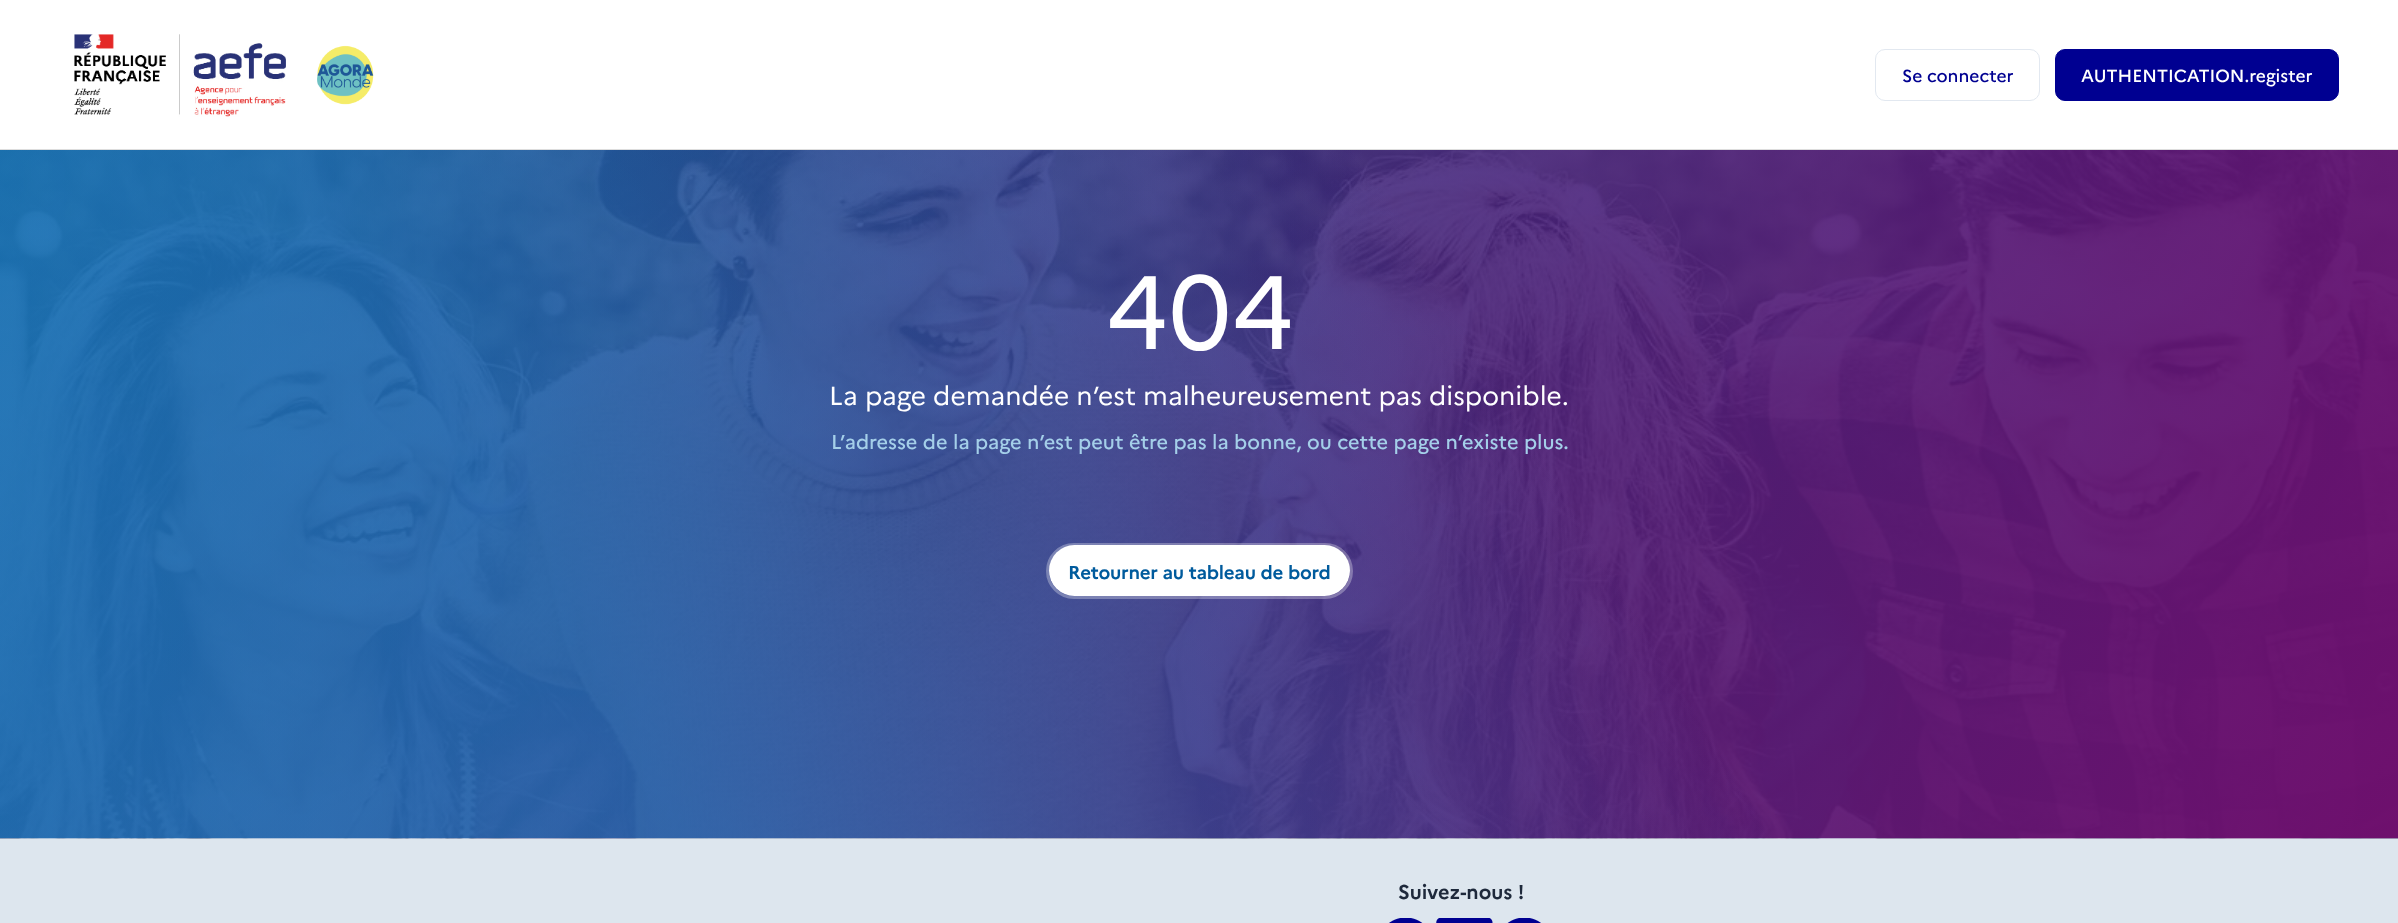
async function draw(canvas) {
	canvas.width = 2398;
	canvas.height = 923;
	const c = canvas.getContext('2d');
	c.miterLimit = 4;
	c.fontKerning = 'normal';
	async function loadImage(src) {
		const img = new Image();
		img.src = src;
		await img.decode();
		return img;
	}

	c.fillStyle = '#fff';
	c.fillRect(0, 0, 2398, 923);
	c.fillStyle = '#ddd';
	c.fillRect(0, 149, 2398, 1);
	c.drawImage(await loadImage('img1.png'), 74, 34, 212, 83);
	c.drawImage(await loadImage('img2.png'), 317, 45, 57, 60);
	c.beginPath();
	c.roundRect(1875.5, 49.5, 164, 51, 9.5);
	c.strokeStyle = '#e2e8f0';
	c.stroke();
	c.font = '500 17.5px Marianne';
	c.fillStyle = '#000091';
	c.fillText('Se connecter', 1902, 82);
	c.beginPath();
	c.roundRect(2055.5, 49.5, 283, 51, 9.5);
	c.fill();
	c.strokeStyle = '#000091';
	c.stroke();
	c.fillStyle = '#fff';
	c.fillText('AUTHENTICATION.register', 2081, 82);
	c.drawImage(await loadImage('img3.png'), 0, 150, 2398, 689);
	c.font = '104px Marianne';
	c.fillText('404', 1106, 349);
	c.font = '26.25px Marianne';
	c.fillText('La page demandée n’est malheureusement pas disponible.', 829, 405);
	c.font = '500 20px Marianne';
	c.fillStyle = '#a4cfe9';
	c.fillText('L’adresse de la page n’est peut être pas la bonne, ou cette page n’existe plus.', 831, 449);
	c.beginPath();
	c.roundRect(1047.5, 544.5, 304, 53, 26.5);
	c.strokeStyle = '#ffffff4d';
	c.lineWidth = 3;
	c.stroke();
	c.fillStyle = '#fff';
	c.beginPath();
	c.roundRect(1049, 545, 301, 51, 25.5);
	c.fill();
	c.letterSpacing = '-0.25px';
	c.font = 'bold 18.75px Marianne';
	c.fillStyle = '#005b9d';
	c.fillText('Retourner au tableau de bord', 1068, 579);
	c.fillStyle = '#dde6ee';
	c.fillRect(0, 839, 2398, 84);
	c.letterSpacing = '0px';
	c.font = 'bold 20px Marianne';
	c.fillStyle = '#1e293b';
	c.fillText('Suivez-nous !', 1398, 899);
	c.drawImage(await loadImage('img4.png'), 1389, 918, 34, 5);
	c.drawImage(await loadImage('img5.png'), 1436, 918, 57, 5);
	c.drawImage(await loadImage('img6.png'), 1507, 918, 34, 5);
}

draw(document.querySelector('canvas'));
